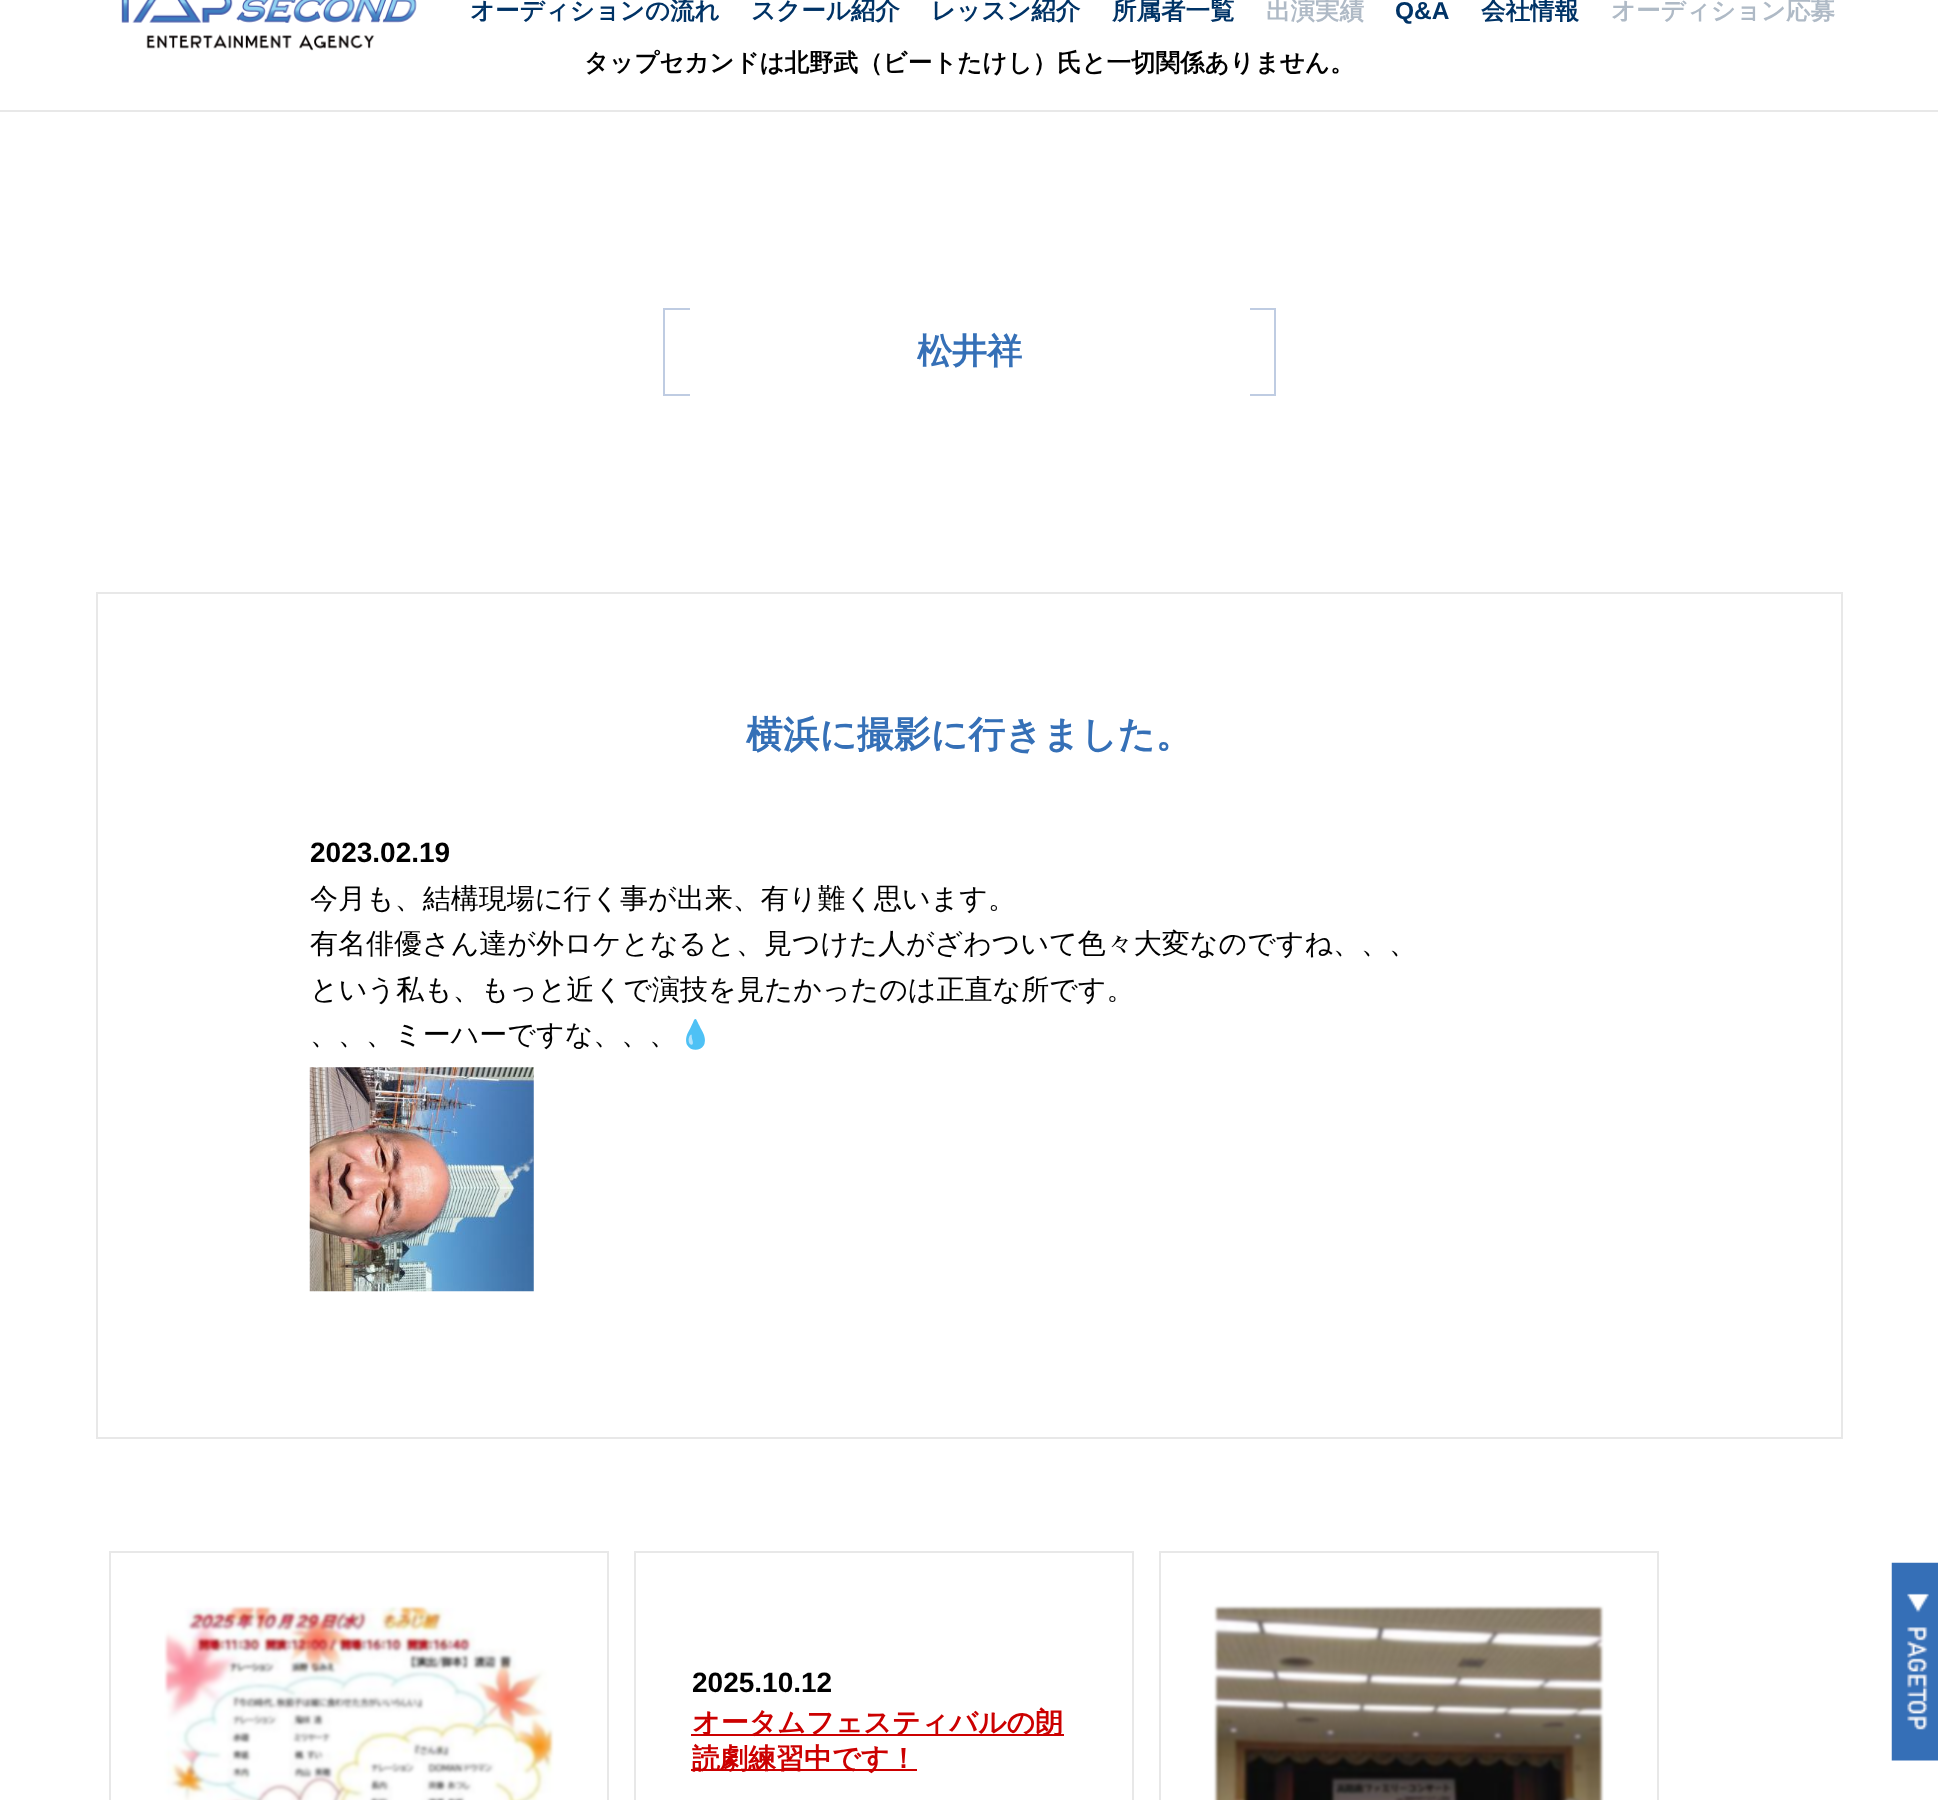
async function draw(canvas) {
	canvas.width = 1938;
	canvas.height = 1800;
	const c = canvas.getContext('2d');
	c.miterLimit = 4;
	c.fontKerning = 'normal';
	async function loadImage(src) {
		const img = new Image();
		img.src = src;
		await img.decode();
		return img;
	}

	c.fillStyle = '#fff';
	c.fillRect(0, 0, 1938, 1800);
	c.fillStyle = '#e8e8e8';
	c.fillRect(0, 110, 1938, 2);
	c.drawImage(await loadImage('img1.png'), 121, 0, 296, 51);
	c.font = 'bold 24.5px WenQuanYi Zen Hei';
	c.fillStyle = '#036';
	for (const [text, x, y] of [
		['オーディションの流れ', 470, 19],
		['スクール紹介', 751, 19],
		['レッスン紹介', 931, 19],
		['所属者一覧', 1112, 19],
	]) {
		c.fillText(text, x, y);
	}
	c.fillStyle = '#afbac6';
	c.fillText('出演実績', 1266, 19);
	c.font = 'bold 24.5px Liberation Sans';
	c.fillStyle = '#036';
	c.fillText('Q&A', 1395, 19);
	c.font = 'bold 24.5px WenQuanYi Zen Hei';
	c.fillText('会社情報', 1481, 19);
	c.fillStyle = '#afbac6';
	c.fillText('オーディション応募', 1611, 19);
	c.fillStyle = '#000';
	c.fillText('タップセカンドは北野武（ビートたけし）氏と一切関係ありません。', 584, 71);
	for (const [x, y, w, h, color] of [
		[663, 308, 27, 2, '#bfcce2'],
		[663, 394, 27, 2, '#bfcce2'],
		[663, 308, 2, 88, '#bfcce2'],
	]) {
		c.fillStyle = color;
		c.fillRect(x, y, w, h);
	}
	c.font = 'bold 35px WenQuanYi Zen Hei';
	c.fillStyle = '#3570b7';
	c.fillText('松井祥', 917, 363);
	for (const [x, y, w, h, color] of [
		[1250, 308, 26, 2, '#bfcce2'],
		[1274, 308, 2, 88, '#bfcce2'],
		[1250, 394, 26, 2, '#bfcce2'],
	]) {
		c.fillStyle = color;
		c.fillRect(x, y, w, h);
	}
	c.strokeStyle = '#e8e8e8';
	c.lineWidth = 2;
	c.strokeRect(97, 593, 1745, 845);
	c.font = 'bold 36.75px WenQuanYi Zen Hei';
	c.fillStyle = '#3570b7';
	c.fillText('横浜に撮影に行きました。', 746, 747);
	c.font = 'bold 28px Liberation Sans';
	c.fillStyle = '#000';
	c.fillText('2023.02.19', 310, 862);
	c.font = '500 28px WenQuanYi Zen Hei';
	for (const [text, x, y] of [
		['今月も、結構現場に行く事が出来、有り難く思います。', 310, 908],
		['有名俳優さん達が外ロケとなると、見つけた人がざわついて色々大変なのですね、、、', 310, 953],
		['という私も、もっと近くで演技を見たかったのは正直な所です。', 310, 999],
		['、、、ミーハーですな、、、', 310, 1044],
	]) {
		c.fillText(text, x, y);
	}
	c.font = '28px Noto Color Emoji';
	c.fillText('💧', 678, 1044);
	c.drawImage(await loadImage('img2.png'), 309, 1067, 225, 225);
	c.strokeRect(110, 1552, 498, 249);
	c.drawImage(await loadImage('img3.png'), 164, 1605, 390, 195);
	c.strokeRect(635, 1552, 498, 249);
	c.font = 'bold 28px Liberation Sans';
	c.fillText('2025.10.12', 692, 1692);
	c.fillStyle = '#c00';
	c.fillRect(691, 1734, 373, 2);
	c.font = 'bold 28px WenQuanYi Zen Hei';
	c.fillText('オータムフェスティバルの朗', 692, 1732);
	c.fillRect(691, 1769, 226, 2);
	c.fillText('読劇練習中です！', 692, 1768);
	c.strokeRect(1160, 1552, 498, 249);
	c.drawImage(await loadImage('img4.png'), 1213, 1605, 391, 195);
	c.drawImage(await loadImage('img5.png'), 1891, 1562, 47, 199);
}

draw(document.querySelector('canvas'));
